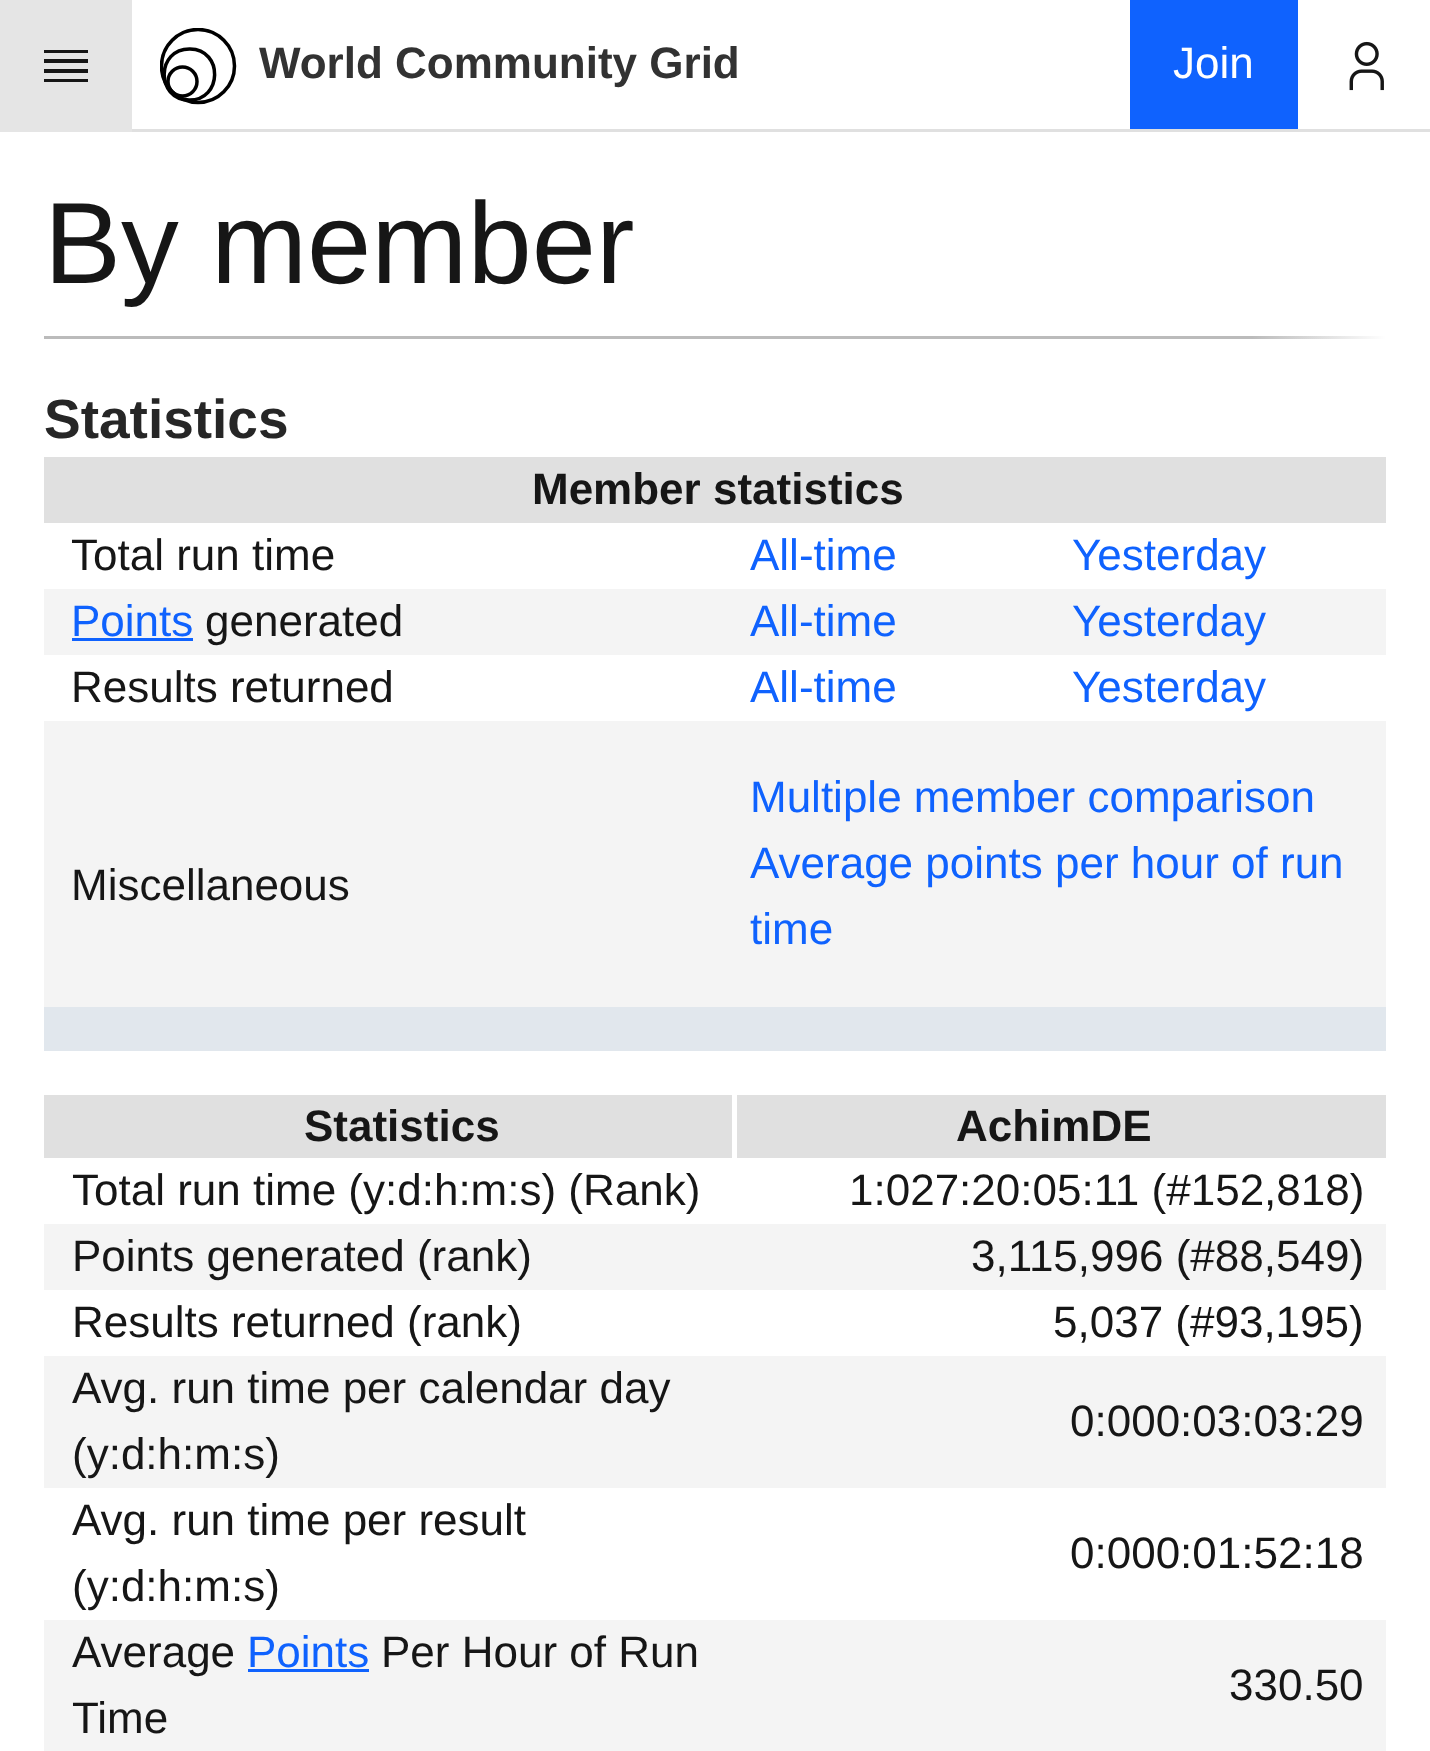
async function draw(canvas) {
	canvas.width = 1430;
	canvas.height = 1751;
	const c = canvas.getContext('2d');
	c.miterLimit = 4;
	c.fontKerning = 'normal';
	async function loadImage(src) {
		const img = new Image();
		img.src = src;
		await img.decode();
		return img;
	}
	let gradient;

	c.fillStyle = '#fff';
	c.fillRect(0, 0, 1430, 1751);
	c.fillStyle = '#e0e0e0';
	c.fillRect(132, 129, 1298, 3);
	c.fillStyle = '#e5e5e5';
	c.fillRect(0, 0, 132, 132);
	c.fillStyle = '#161616';
	c.beginPath();
	c.moveTo(44, 79);
	c.lineTo(88, 79);
	c.lineTo(88, 82);
	c.lineTo(44, 82);
	c.closePath();
	c.moveTo(44, 69);
	c.lineTo(88, 69);
	c.lineTo(88, 73);
	c.lineTo(44, 73);
	c.closePath();
	c.moveTo(44, 59);
	c.lineTo(88, 59);
	c.lineTo(88, 63);
	c.lineTo(44, 63);
	c.closePath();
	c.moveTo(44, 50);
	c.lineTo(88, 50);
	c.lineTo(88, 53);
	c.lineTo(44, 53);
	c.closePath();
	c.fill();
	c.save();
	c.beginPath();
	c.rect(160, 28, 77, 77);
	c.clip();
	c.beginPath();
	c.arc(198, 66, 36.5, 0, 2 * Math.PI);
	c.strokeStyle = '#000';
	c.lineWidth = 3.5;
	c.stroke();
	c.restore();
	c.beginPath();
	c.moveTo(190, 49);
	c.bezierCurveTo(223.5, 49.5, 222.5, 100.5, 189, 100);
	c.bezierCurveTo(155.5, 99.5, 156, 48.5, 190, 49);
	c.closePath();
	c.strokeStyle = '#000';
	c.lineWidth = 3.5;
	c.stroke();
	c.beginPath();
	c.arc(182.5, 81.5, 14.5, 0, 2 * Math.PI);
	c.stroke();
	c.font = 'bold 44px Liberation Sans';
	c.fillStyle = '#323232';
	c.fillText('World Community Grid', 259, 78);
	c.fillStyle = '#0f62fe';
	c.fillRect(1130, 0, 168, 129);
	c.font = '44px Liberation Sans';
	c.fillStyle = '#fff';
	c.fillText('Join', 1173, 78);
	c.drawImage(await loadImage('img1.png'), 1349, 41, 35, 50);
	c.font = '115.5px Liberation Sans';
	c.fillStyle = '#161616';
	c.fillText('By member', 44, 283);
	gradient = c.createLinearGradient(44, 337, 1386, 337);
	gradient.addColorStop(0.9, '#bbb');
	gradient.addColorStop(1, '#fff');
	c.fillStyle = gradient;
	c.fillRect(44, 336, 1342, 3);
	c.font = 'bold 55px Liberation Sans';
	c.fillStyle = '#262626';
	c.fillText('Statistics', 44, 438);
	c.fillStyle = '#e0e0e0';
	c.fillRect(44, 457, 1342, 66);
	c.font = 'bold 44px Liberation Sans';
	c.fillStyle = '#161616';
	c.fillText('Member statistics', 532, 504);
	c.font = '44px Liberation Sans';
	c.fillText('Total run time', 71, 570);
	c.fillStyle = '#0f62fe';
	c.fillText('All-time', 750, 570);
	c.fillText('Yesterday', 1072, 570);
	c.fillStyle = '#f4f4f4';
	c.fillRect(44, 589, 1342, 66);
	c.fillStyle = '#0f62fe';
	c.fillText('Points', 71, 636);
	c.fillRect(72, 638, 121, 3);
	c.fillStyle = '#161616';
	c.fillText('generated', 205, 636);
	c.fillStyle = '#0f62fe';
	c.fillText('All-time', 750, 636);
	c.fillText('Yesterday', 1072, 636);
	c.fillStyle = '#161616';
	c.fillText('Results returned', 71, 702);
	c.fillStyle = '#0f62fe';
	c.fillText('All-time', 750, 702);
	c.fillText('Yesterday', 1072, 702);
	c.fillStyle = '#f4f4f4';
	c.fillRect(44, 721, 1342, 286);
	c.fillStyle = '#161616';
	c.fillText('Miscellaneous', 71, 900);
	c.fillStyle = '#0f62fe';
	for (const [text, x, y] of [
		['Multiple member comparison', 750, 812],
		['Average points per hour of run', 750, 878],
		['time', 750, 944],
	]) {
		c.fillText(text, x, y);
	}
	c.fillStyle = '#e1e7ed';
	c.fillRect(44, 1007, 1342, 44);
	c.fillStyle = '#e0e0e0';
	c.fillRect(44, 1095, 688, 63);
	c.font = 'bold 44px Liberation Sans';
	c.fillStyle = '#161616';
	c.fillText('Statistics', 304, 1141);
	c.fillStyle = '#e0e0e0';
	c.fillRect(737, 1095, 649, 63);
	c.fillStyle = '#161616';
	c.fillText('AchimDE', 956, 1141);
	c.font = '44px Liberation Sans';
	c.fillText('Total run time (y:d:h:m:s) (Rank)', 72, 1205);
	c.fillText('1:027:20:05:11 (#152,818)', 849, 1205);
	c.fillStyle = '#f4f4f4';
	c.fillRect(44, 1224, 1342, 66);
	c.fillStyle = '#161616';
	for (const [text, x, y] of [
		['Points generated (rank)', 72, 1271],
		['3,115,996 (#88,549)', 971, 1271],
		['Results returned (rank)', 72, 1337],
		['5,037 (#93,195)', 1053, 1337],
	]) {
		c.fillText(text, x, y);
	}
	c.fillStyle = '#f4f4f4';
	c.fillRect(44, 1356, 1342, 132);
	c.fillStyle = '#161616';
	for (const [text, x, y] of [
		['Avg. run time per calendar day', 72, 1403],
		['(y:d:h:m:s)', 72, 1469],
		['0:000:03:03:29', 1070, 1436],
		['Avg. run time per result', 72, 1535],
		['(y:d:h:m:s)', 72, 1601],
		['0:000:01:52:18', 1070, 1568],
	]) {
		c.fillText(text, x, y);
	}
	c.fillStyle = '#f4f4f4';
	c.fillRect(44, 1620, 1342, 131);
	c.fillStyle = '#161616';
	c.fillText('Average', 72, 1667);
	c.fillStyle = '#0f62fe';
	c.fillText('Points', 247, 1667);
	c.fillRect(248, 1669, 121, 3);
	c.fillStyle = '#161616';
	for (const [text, x, y] of [
		['Per Hour of Run', 381, 1667],
		['Time', 72, 1733],
		['330.50', 1229, 1700],
	]) {
		c.fillText(text, x, y);
	}
}

draw(document.querySelector('canvas'));
